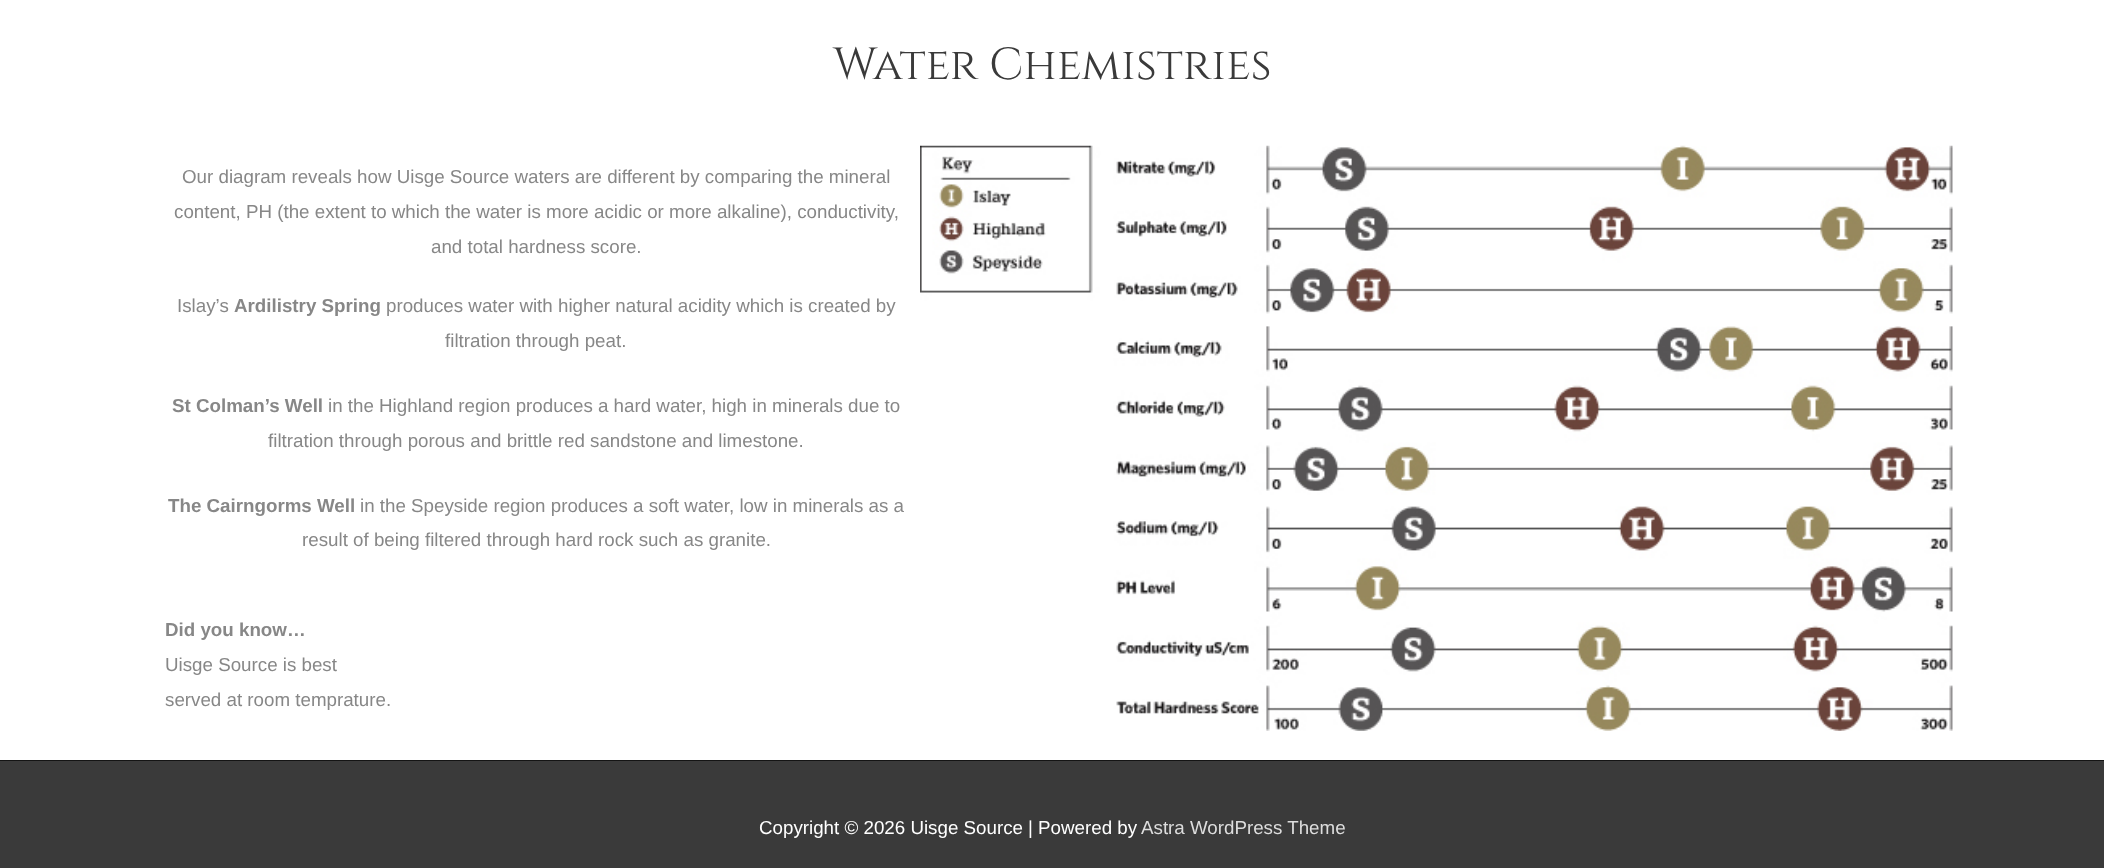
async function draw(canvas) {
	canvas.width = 2104;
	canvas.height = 868;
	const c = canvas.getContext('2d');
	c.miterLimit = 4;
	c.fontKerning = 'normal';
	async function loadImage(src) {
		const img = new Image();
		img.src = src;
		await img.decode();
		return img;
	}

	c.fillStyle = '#fff';
	c.fillRect(0, 0, 2104, 868);
	c.font = '45px Cinzel';
	c.fillStyle = '#3a3a3a';
	c.fillText('Water Chemistries', 833, 79);
	c.font = '18.75px Liberation Sans';
	c.fillStyle = '#878787';
	for (const [text, x, y] of [
		['Our diagram reveals how Uisge Source waters are different by comparing the mineral', 182, 183],
		['content, PH (the extent to which the water is more acidic or more alkaline), conductivity,', 174, 218],
		['and total hardness score.', 431, 253],
		['Islay’s', 177, 312],
	]) {
		c.fillText(text, x, y);
	}
	c.font = 'bold 18.75px Liberation Sans';
	c.fillText('Ardilistry Spring', 234, 312);
	c.font = '18.75px Liberation Sans';
	c.fillText('produces water with higher natural acidity which is created by', 386, 312);
	c.fillText('filtration through peat.', 445, 347);
	c.font = 'bold 18.75px Liberation Sans';
	c.fillText('St Colman’s Well', 172, 412);
	c.font = '18.75px Liberation Sans';
	c.fillText('in the Highland region produces a hard water, high in minerals due to', 328, 412);
	c.fillText('filtration through porous and brittle red sandstone and limestone.', 268, 447);
	c.font = 'bold 18.75px Liberation Sans';
	c.fillText('The Cairngorms Well', 168, 512);
	c.font = '18.75px Liberation Sans';
	c.fillText('in the Speyside region produces a soft water, low in minerals as a', 360, 512);
	c.fillText('result of being filtered through hard rock such as granite.', 302, 546);
	c.font = 'bold 18.75px Liberation Sans';
	c.fillText('Did you know…', 165, 636);
	c.font = '18.75px Liberation Sans';
	c.fillText('Uisge Source is best', 165, 671);
	c.fillText('served at room temprature.', 165, 706);
	c.drawImage(await loadImage('img1.png'), 920, 145, 1033, 586);
	c.fillStyle = '#141414';
	c.fillRect(0, 760, 2104, 1);
	c.fillStyle = '#3a3a3a';
	c.fillRect(0, 761, 2104, 107);
	c.fillStyle = '#fff';
	c.fillText('Copyright © 2026 Uisge Source', 759, 834);
	c.fillText('| Powered by', 1028, 834);
	c.fillStyle = '#ddd';
	c.fillText('Astra WordPress Theme', 1141, 834);
}

draw(document.querySelector('canvas'));
